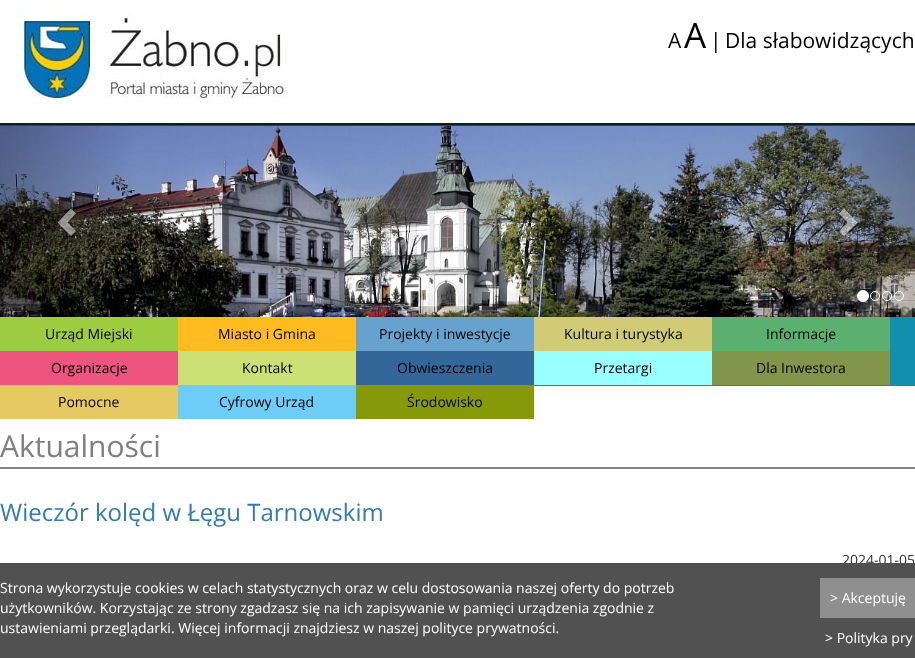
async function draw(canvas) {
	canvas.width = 915;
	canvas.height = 658;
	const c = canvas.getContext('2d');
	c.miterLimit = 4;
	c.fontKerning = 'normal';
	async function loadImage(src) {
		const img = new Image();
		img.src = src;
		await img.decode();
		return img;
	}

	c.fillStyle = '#fff';
	c.fillRect(0, 0, 915, 658);
	c.drawImage(await loadImage('img1.png'), 0, 120, 915, 266);
	c.drawImage(await loadImage('img2.png'), 16, 10, 272, 96);
	c.font = '21px Open Sans';
	c.fillStyle = '#000';
	c.fillText('A', 668, 48);
	c.font = '35px Open Sans';
	c.fillText('A', 684, 48);
	c.font = '21px Open Sans';
	c.fillText('|', 710, 48);
	c.fillText('Dla słabowidzących', 725, 48);
	c.drawImage(await loadImage('img3.png'), 0, 126, 915, 191);
	c.fillStyle = '#ffffff80';
	c.beginPath();
	c.moveTo(76, 213.5);
	c.lineTo(67.5, 222.5);
	c.lineTo(76, 231);
	c.lineTo(71, 236);
	c.lineTo(57.5, 222.5);
	c.lineTo(71, 208.5);
	c.closePath();
	c.fill();
	c.beginPath();
	c.moveTo(857.5, 222.5);
	c.lineTo(844, 236);
	c.lineTo(839, 231);
	c.lineTo(847.5, 222.5);
	c.lineTo(839, 213.5);
	c.lineTo(844, 208.5);
	c.closePath();
	c.fill();
	c.fillStyle = '#fff';
	c.beginPath();
	c.arc(863, 296, 5.5, 0, 2 * Math.PI);
	c.fill();
	c.strokeStyle = '#fff';
	c.stroke();
	c.beginPath();
	c.arc(875, 296, 4.5, 0, 2 * Math.PI);
	c.stroke();
	c.beginPath();
	c.arc(887, 296, 4.5, 0, 2 * Math.PI);
	c.stroke();
	c.beginPath();
	c.arc(899, 296, 4.5, 0, 2 * Math.PI);
	c.stroke();
	c.fillStyle = '#9ecc41';
	c.fillRect(0, 317, 178, 34);
	c.font = '14px Open Sans';
	c.fillStyle = '#000';
	c.fillText('Urząd Miejski', 45, 339);
	c.fillStyle = '#ffbb20';
	c.fillRect(178, 317, 178, 34);
	c.fillStyle = '#000';
	c.fillText('Miasto i Gmina', 218, 339);
	c.fillStyle = '#67a2cf';
	c.fillRect(356, 317, 178, 34);
	c.fillStyle = '#000';
	c.fillText('Projekty i inwestycje', 379, 339);
	c.fillStyle = '#d1cb77';
	c.fillRect(534, 317, 178, 34);
	c.fillStyle = '#000';
	c.fillText('Kultura i turystyka', 564, 339);
	c.fillStyle = '#5bb06f';
	c.fillRect(712, 317, 178, 34);
	c.fillStyle = '#000';
	c.fillText('Informacje', 766, 339);
	c.fillStyle = '#ed557e';
	c.fillRect(0, 351, 178, 34);
	c.fillStyle = '#000';
	c.fillText('Organizacje', 51, 373);
	c.fillStyle = '#cde075';
	c.fillRect(178, 351, 178, 34);
	c.fillStyle = '#000';
	c.fillText('Kontakt', 242, 373);
	c.fillStyle = '#336799';
	c.fillRect(356, 351, 178, 34);
	c.fillStyle = '#000';
	c.fillText('Obwieszczenia', 397, 373);
	c.fillStyle = '#9ff';
	c.fillRect(534, 351, 178, 34);
	c.fillStyle = '#000';
	c.fillText('Przetargi', 594, 373);
	c.fillStyle = '#81964b';
	c.fillRect(712, 351, 178, 34);
	c.fillStyle = '#000';
	c.fillText('Dla Inwestora', 756, 373);
	c.fillStyle = '#e6c963';
	c.fillRect(0, 385, 178, 34);
	c.fillStyle = '#000';
	c.fillText('Pomocne', 58, 407);
	c.fillStyle = '#6fccf7';
	c.fillRect(178, 385, 178, 34);
	c.fillStyle = '#000';
	c.fillText('Cyfrowy Urząd', 219, 407);
	c.fillStyle = '#869909';
	c.fillRect(356, 385, 178, 34);
	c.fillStyle = '#000';
	c.fillText('Środowisko', 407, 407);
	c.fillStyle = '#808080';
	c.fillRect(0, 467, 915, 2);
	c.font = '30px Open Sans';
	c.fillText('Aktualności', 0, 457);
	c.font = '24px Open Sans';
	c.fillStyle = '#337ab7';
	c.fillText('Wieczór kolęd w Łęgu Tarnowskim', 0, 521);
	c.font = '14px Open Sans';
	c.fillStyle = '#333';
	c.fillText('2024-01-05', 842, 565);
	c.fillStyle = '#515151';
	c.fillRect(0, 563, 915, 95);
	c.fillStyle = '#fff';
	for (const [text, x, y] of [
		['Strona wykorzystuje cookies w celach statystycznych oraz w celu dostosowania naszej oferty do potrzeb', 0, 593],
		['użytkowników. Korzystając ze strony zgadzasz się na ich zapisywanie w pamięci urządzenia zgodnie z', 0, 613],
		['ustawieniami przeglądarki. Więcej informacji znajdziesz w naszej polityce prywatności.', 0, 633],
	]) {
		c.fillText(text, x, y);
	}
	c.fillStyle = '#8f8f8f';
	c.fillRect(820, 578, 95, 40);
	c.fillStyle = '#fff';
	c.fillText('> Akceptuję', 830, 603);
	c.fillText('> Polityka pry', 825, 643);
}

draw(document.querySelector('canvas'));
